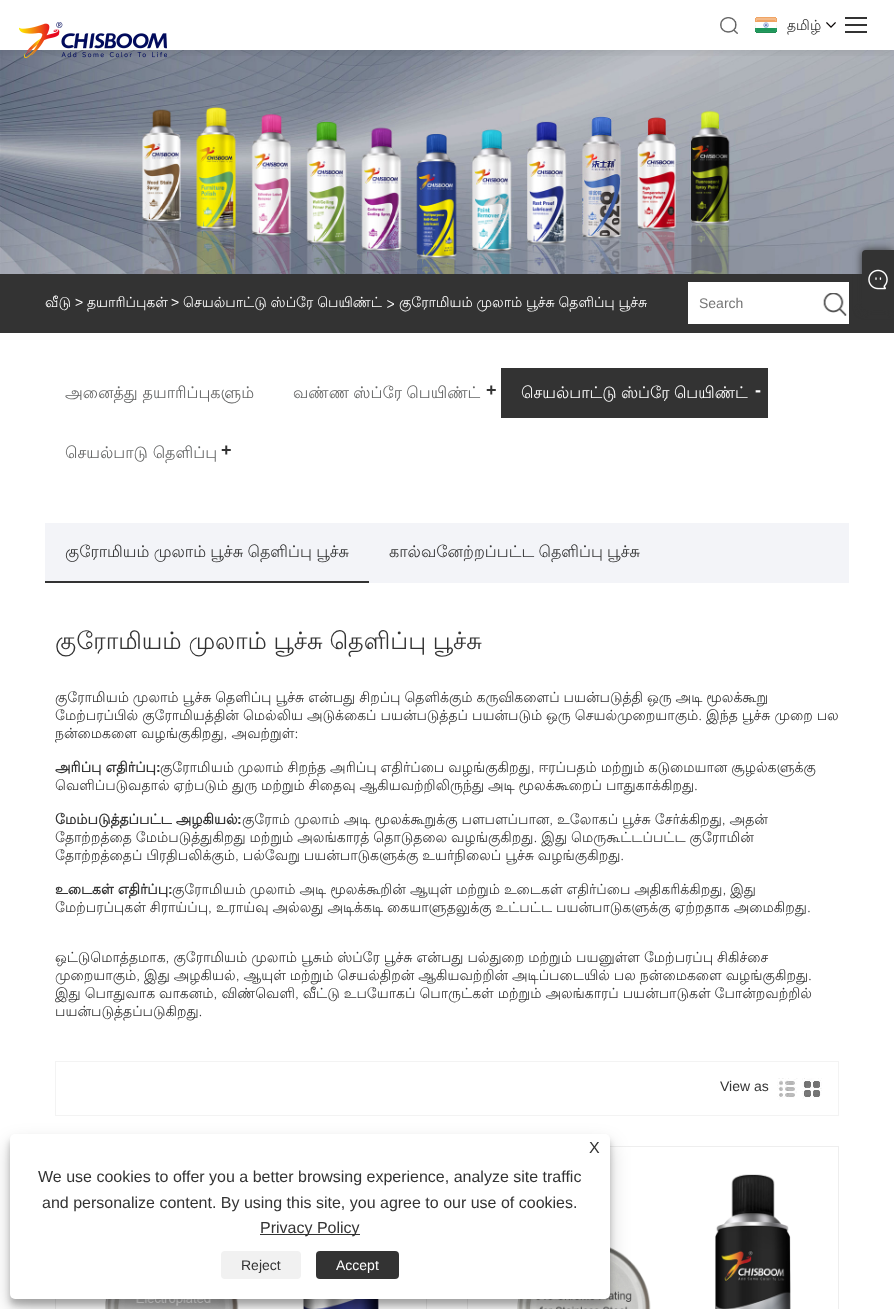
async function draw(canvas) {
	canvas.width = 894;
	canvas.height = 1309;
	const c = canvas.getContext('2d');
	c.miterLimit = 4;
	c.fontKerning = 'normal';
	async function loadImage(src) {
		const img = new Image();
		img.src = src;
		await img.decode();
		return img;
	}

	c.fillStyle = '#fff';
	c.fillRect(0, 0, 894, 1309);
	c.drawImage(await loadImage('img5.png'), 0, 50, 894, 224);
	c.save();
	c.beginPath();
	c.rect(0, 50, 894, 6);
	c.clip();
	c.fillStyle = '#0000001a';
	c.filter = 'blur(6px)';
	c.beginPath();
	c.rect(0, 1, 894, 50);
	c.fill();
	c.filter = 'none';
	c.restore();
	c.drawImage(await loadImage('img1.png'), 19, 22, 148, 36);
	c.drawImage(await loadImage('img2.png'), 720, 17, 18, 17);
	c.drawImage(await loadImage('img3.png'), 826, 22, 10, 6);
	c.drawImage(await loadImage('img4.png'), 755, 17, 22, 16);
	c.font = '14px Lohit Tamil';
	c.fillStyle = '#333';
	c.fillText('தமிழ்', 787, 30);
	for (const [x, y, w, h, color] of [
		[845, 17, 22, 2, '#333'],
		[845, 24, 22, 2, '#333'],
		[845, 31, 22, 2, '#333'],
		[0, 274, 894, 59, '#333'],
	]) {
		c.fillStyle = color;
		c.fillRect(x, y, w, h);
	}
	c.fillStyle = '#fff';
	c.fillText('வீடு', 45, 307);
	c.font = '14px Liberation Sans';
	c.fillText('>', 75, 307);
	c.font = '14px Lohit Tamil';
	c.fillText('தயாரிப்புகள்', 87, 307);
	c.font = '14px Liberation Sans';
	c.fillText('>', 171, 307);
	c.wordSpacing = '-0.25px';
	c.font = '14px Lohit Tamil';
	c.fillText('செயல்பாட்டு ஸ்ப்ரே பெயிண்ட்', 183, 307);
	c.wordSpacing = '-0.5px';
	c.fillText('> குரோமியம் முலாம் பூச்சு தெளிப்பு பூச்சு', 386, 307);
	c.fillRect(688, 282, 161, 42);
	c.wordSpacing = '0px';
	c.font = '14px Liberation Sans';
	c.fillStyle = '#757575';
	c.fillText('Search', 699, 308);
	c.drawImage(await loadImage('img6.png'), 823, 293, 24, 23);
	c.font = '16px Lohit Tamil';
	c.fillStyle = '#646565';
	c.fillText('அனைத்து தயாரிப்புகளும்', 65, 398);
	c.wordSpacing = '-0.5px';
	c.fillText('வண்ண ஸ்ப்ரே பெயிண்ட்', 293, 398);
	c.wordSpacing = '0px';
	c.font = 'bold 18px Liberation Sans';
	c.fillStyle = '#333';
	c.fillText('+', 486, 396);
	c.fillRect(501, 368, 267, 50);
	c.wordSpacing = '-0.5px';
	c.font = '16px Lohit Tamil';
	c.fillStyle = '#fff';
	c.fillText('செயல்பாட்டு ஸ்ப்ரே பெயிண்ட்', 521, 398);
	c.wordSpacing = '0px';
	c.font = 'bold 18px Liberation Sans';
	c.fillText('-', 755, 396);
	c.font = '16px Lohit Tamil';
	c.fillStyle = '#646565';
	c.fillText('செயல்பாடு தெளிப்பு', 65, 458);
	c.font = 'bold 18px Liberation Sans';
	c.fillStyle = '#333';
	c.fillText('+', 221, 456);
	c.fillStyle = '#f3f4f8';
	c.fillRect(45, 523, 804, 60);
	c.wordSpacing = '-0.5px';
	c.font = '16px Lohit Tamil';
	c.fillStyle = '#333';
	c.fillText('குரோமியம் முலாம் பூச்சு தெளிப்பு பூச்சு', 65, 557);
	c.fillRect(45, 581, 324, 2);
	c.fillText('கால்வனேற்றப்பட்ட தெளிப்பு பூச்சு', 389, 557);
	c.font = '24px Lohit Tamil';
	c.fillText('குரோமியம் முலாம் பூச்சு தெளிப்பு பூச்சு', 55, 649);
	c.wordSpacing = '-0.25px';
	c.font = '14px Lohit Tamil';
	c.fillText('குரோமியம் முலாம் பூச்சு தெளிப்பு பூச்சு என்பது சிறப்பு தெளிக்கும் கருவிகளைப் பயன்படுத்தி ஒரு அடி மூலக்கூறு', 55, 702);
	c.fillText('மேற்பரப்பில் குரோமியத்தின் மெல்லிய அடுக்கைப் பயன்படுத்தப் பயன்படும் ஒரு செயல்முறையாகும். இந்த பூச்சு முறை பல', 55, 720);
	c.wordSpacing = '0px';
	c.fillText('நன்மைகளை வழங்குகிறது, அவற்றுள்:', 55, 738);
	c.wordSpacing = '-0.25px';
	c.font = 'bold 14px Lohit Tamil';
	c.fillText('அரிப்பு எதிர்ப்பு', 55, 772);
	c.wordSpacing = '0px';
	c.font = 'bold 14px Liberation Sans';
	c.fillText(':', 156, 772);
	c.wordSpacing = '-0.25px';
	c.font = '14px Lohit Tamil';
	c.fillText('குரோமியம் முலாம் சிறந்த அரிப்பு எதிர்ப்பை வழங்குகிறது, ஈரப்பதம் மற்றும் கடுமையான சூழல்களுக்கு', 160, 772);
	c.fillText('வெளிப்படுவதால் ஏற்படும் துரு மற்றும் சிதைவு ஆகியவற்றிலிருந்து அடி மூலக்கூறைப் பாதுகாக்கிறது.', 55, 790);
	c.font = 'bold 14px Lohit Tamil';
	c.fillText('மேம்படுத்தப்பட்ட அழகியல்', 55, 824);
	c.wordSpacing = '0px';
	c.font = 'bold 14px Liberation Sans';
	c.fillText(':', 237, 824);
	c.wordSpacing = '-0.25px';
	c.font = '14px Lohit Tamil';
	for (const [text, x, y] of [
		['குரோம் முலாம் அடி மூலக்கூறுக்கு பளபளப்பான, உலோகப் பூச்சு சேர்க்கிறது, அதன்', 242, 824],
		['தோற்றத்தை மேம்படுத்துகிறது மற்றும் அலங்காரத் தொடுதலை வழங்குகிறது. இது மெருகூட்டப்பட்ட குரோமின்', 55, 842],
		['தோற்றத்தைப் பிரதிபலிக்கும், பல்வேறு பயன்பாடுகளுக்கு உயர்நிலைப் பூச்சு வழங்குகிறது.', 55, 860],
	]) {
		c.fillText(text, x, y);
	}
	c.font = 'bold 14px Lohit Tamil';
	c.fillText('உடைகள் எதிர்ப்பு', 55, 894);
	c.wordSpacing = '0px';
	c.font = 'bold 14px Liberation Sans';
	c.fillText(':', 168, 894);
	c.wordSpacing = '-0.25px';
	c.font = '14px Lohit Tamil';
	for (const [text, x, y] of [
		['குரோமியம் முலாம் அடி மூலக்கூறின் ஆயுள் மற்றும் உடைகள் எதிர்ப்பை அதிகரிக்கிறது, இது', 172, 894],
		['மேற்பரப்புகள் சிராய்ப்பு, உராய்வு அல்லது அடிக்கடி கையாளுதலுக்கு உட்பட்ட பயன்பாடுகளுக்கு ஏற்றதாக அமைகிறது.', 55, 912],
		['ஒட்டுமொத்தமாக, குரோமியம் முலாம் பூசும் ஸ்ப்ரே பூச்சு என்பது பல்துறை மற்றும் பயனுள்ள மேற்பரப்பு சிகிச்சை', 55, 962],
		['முறையாகும், இது அழகியல், ஆயுள் மற்றும் செயல்திறன் ஆகியவற்றின் அடிப்படையில் பல நன்மைகளை வழங்குகிறது.', 55, 980],
		['இது பொதுவாக வாகனம், விண்வெளி, வீட்டு உபயோகப் பொருட்கள் மற்றும் அலங்காரப் பயன்பாடுகள் போன்றவற்றில்', 55, 998],
	]) {
		c.fillText(text, x, y);
	}
	c.wordSpacing = '0px';
	c.fillText('பயன்படுத்தப்படுகிறது.', 55, 1016);
	c.strokeStyle = '#f3f3f3';
	c.strokeRect(55.5, 1061.5, 783, 54);
	c.font = '14px Liberation Sans';
	c.fillText('View as', 720, 1091);
	c.drawImage(await loadImage('img7.png'), 777, 1078, 21, 22);
	c.drawImage(await loadImage('img8.png'), 802, 1078, 20, 21);
	c.strokeStyle = '#eee';
	c.strokeRect(55.5, 1146.5, 371, 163);
	c.drawImage(await loadImage('img9.png'), 65, 1299, 314, 10);
	c.strokeRect(467.5, 1146.5, 371, 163);
	c.drawImage(await loadImage('img10.png'), 477, 1161, 314, 148);
	c.filter = 'blur(4px)';
	c.beginPath();
	c.roundRect(862, 250, 32, 60, 4);
	c.fill();
	c.filter = 'none';
	c.beginPath();
	c.roundRect(862, 250, 32, 60, [4, 0, 0, 4]);
	c.fill();
	c.drawImage(await loadImage('img11.png'), 868, 269, 20, 21);
	c.fillStyle = '#0000003b';
	c.filter = 'blur(3px)';
	c.beginPath();
	c.roundRect(10, 1140, 600, 165, 5);
	c.fill();
	c.filter = 'none';
	c.fillStyle = '#00000030';
	c.filter = 'blur(10px)';
	c.beginPath();
	c.roundRect(10, 1144, 600, 165, 5);
	c.fill();
	c.filter = 'none';
	c.fillStyle = '#fff';
	c.beginPath();
	c.roundRect(10, 1134, 600, 165, 5);
	c.fill();
	c.font = '16px Liberation Sans';
	c.fillStyle = '#333';
	for (const [text, x, y] of [
		['X', 589, 1153],
		['We use cookies to offer you a better browsing experience, analyze site traffic', 38, 1182],
		['and personalize content. By using this site, you agree to our use of cookies.', 42, 1208],
	]) {
		c.fillText(text, x, y);
	}
	c.fillRect(260, 1234, 100, 1);
	c.fillText('Privacy Policy', 260, 1233);
	c.fillStyle = '#f1f1f1';
	c.beginPath();
	c.roundRect(221, 1251, 80, 28, 4);
	c.fill();
	c.font = '14px Liberation Sans';
	c.fillStyle = '#333';
	c.fillText('Reject', 241, 1270);
	c.beginPath();
	c.roundRect(316, 1251, 83, 28, 4);
	c.fill();
	c.fillStyle = '#fff';
	c.fillText('Accept', 336, 1270);
}

draw(document.querySelector('canvas'));
